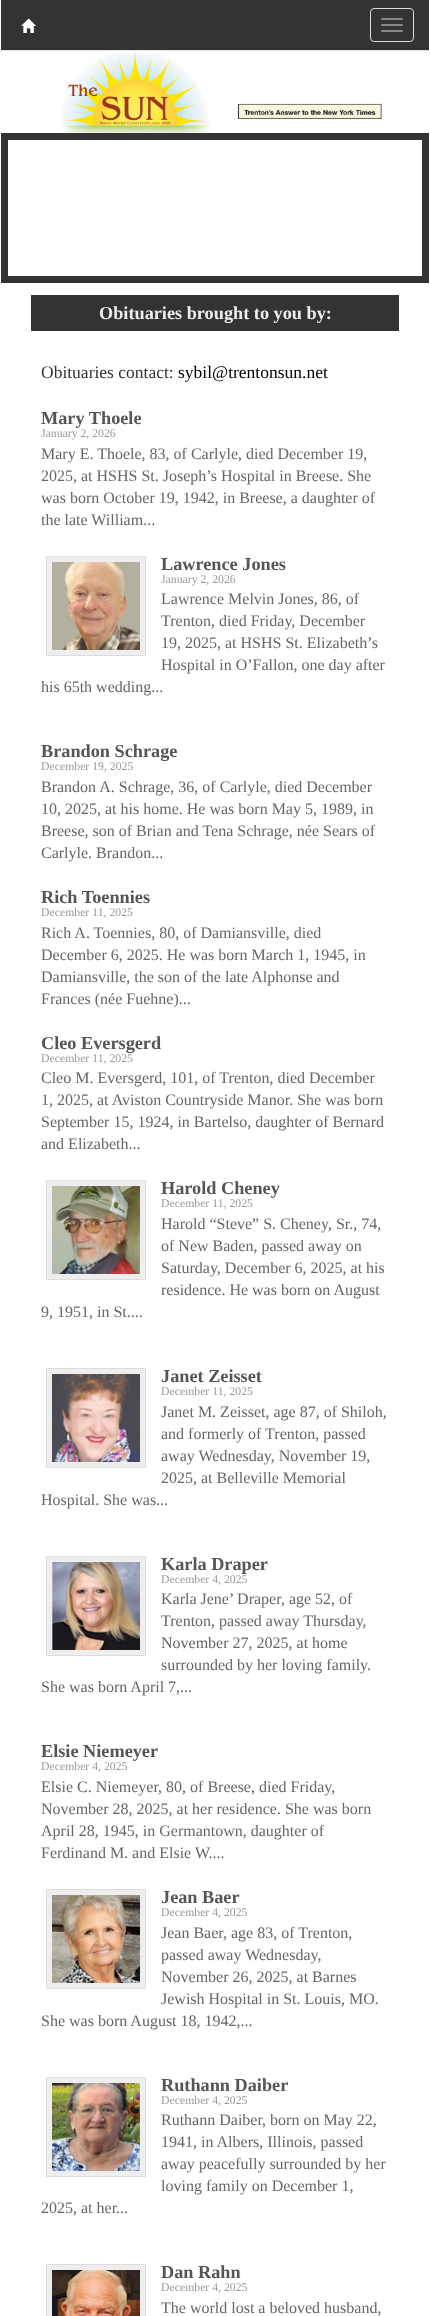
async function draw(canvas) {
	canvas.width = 430;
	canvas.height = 2316;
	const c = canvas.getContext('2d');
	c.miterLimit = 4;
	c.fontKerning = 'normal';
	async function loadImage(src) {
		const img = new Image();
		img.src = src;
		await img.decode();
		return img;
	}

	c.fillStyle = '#fff';
	c.fillRect(0, 0, 430, 2316);
	c.fillStyle = '#e7e7e7';
	c.fillRect(0, 50, 430, 1);
	c.fillStyle = '#333';
	c.fillRect(1, 0, 428, 50);
	c.drawImage(await loadImage('img1.png'), 21, 18, 15, 15);
	c.beginPath();
	c.roundRect(370.5, 8.5, 43, 33, 3.5);
	c.strokeStyle = '#ddd';
	c.stroke();
	c.fillStyle = '#888';
	c.beginPath();
	c.roundRect(381, 18, 22, 2, 1);
	c.fill();
	c.beginPath();
	c.roundRect(381, 24, 22, 2, 1);
	c.fill();
	c.beginPath();
	c.roundRect(381, 30, 22, 2, 1);
	c.fill();
	c.drawImage(await loadImage('img2.png'), 61, 52, 321, 81);
	c.strokeStyle = '#333';
	c.lineWidth = 7;
	c.strokeRect(4.5, 136.5, 421, 143);
	c.fillStyle = '#333';
	c.fillRect(31, 295, 368, 36);
	c.font = 'bold 18.25px Liberation Serif';
	c.fillStyle = '#eee';
	c.fillText('Obituaries brought to you by:', 99, 319);
	c.font = '17.5px Liberation Serif';
	c.fillStyle = '#333';
	c.fillText('Obituaries contact:', 41, 378);
	c.fillStyle = '#000';
	c.fillText('sybil@trentonsun.net', 178, 378);
	c.font = 'bold 18.25px Liberation Serif';
	c.fillStyle = '#555';
	c.fillText('Mary Thoele', 41, 424);
	c.font = '11.75px Liberation Serif';
	c.fillStyle = '#999';
	c.fillText('January 2, 2026', 41, 437);
	c.font = '16px Liberation Serif';
	c.fillStyle = '#666';
	for (const [text, x, y] of [
		['Mary E. Thoele, 83, of Carlyle, died December 19,', 41, 459],
		['2025, at HSHS St. Joseph’s Hospital in Breese. She', 41, 481],
		['was born October 19, 1942, in Breese, a daughter of', 41, 503],
		['the late William...', 41, 525],
	]) {
		c.fillText(text, x, y);
	}
	c.fillStyle = '#eee';
	c.beginPath();
	c.rect(46.5, 556.5, 99, 99);
	c.fill();
	c.strokeStyle = '#ddd';
	c.lineWidth = 1;
	c.stroke();
	c.drawImage(await loadImage('img3.png'), 52, 562, 88, 88);
	c.font = 'bold 18.25px Liberation Serif';
	c.fillStyle = '#555';
	c.fillText('Lawrence Jones', 161, 570);
	c.font = '11.75px Liberation Serif';
	c.fillStyle = '#999';
	c.fillText('January 2, 2026', 161, 583);
	c.font = '16px Liberation Serif';
	c.fillStyle = '#666';
	for (const [text, x, y] of [
		['Lawrence Melvin Jones, 86, of', 161, 604],
		['Trenton, died Friday, December', 161, 626],
		['19, 2025, at HSHS St. Elizabeth’s', 161, 648],
		['Hospital in O’Fallon, one day after', 161, 670],
		['his 65th wedding...', 41, 692],
	]) {
		c.fillText(text, x, y);
	}
	c.font = 'bold 18.25px Liberation Serif';
	c.fillStyle = '#555';
	c.fillText('Brandon Schrage', 41, 757);
	c.font = '11.75px Liberation Serif';
	c.fillStyle = '#999';
	c.fillText('December 19, 2025', 41, 770);
	c.font = '16px Liberation Serif';
	c.fillStyle = '#666';
	for (const [text, x, y] of [
		['Brandon A. Schrage, 36, of Carlyle, died December', 41, 792],
		['10, 2025, at his home. He was born May 5, 1989, in', 41, 814],
		['Breese, son of Brian and Tena Schrage, née Sears of', 41, 836],
		['Carlyle. Brandon...', 41, 858],
	]) {
		c.fillText(text, x, y);
	}
	c.font = 'bold 18.25px Liberation Serif';
	c.fillStyle = '#555';
	c.fillText('Rich Toennies', 41, 903);
	c.font = '11.75px Liberation Serif';
	c.fillStyle = '#999';
	c.fillText('December 11, 2025', 41, 916);
	c.font = '16px Liberation Serif';
	c.fillStyle = '#666';
	for (const [text, x, y] of [
		['Rich A. Toennies, 80, of Damiansville, died', 41, 938],
		['December 6, 2025. He was born March 1, 1945, in', 41, 960],
		['Damiansville, the son of the late Alphonse and', 41, 982],
		['Frances (née Fuehne)...', 41, 1004],
	]) {
		c.fillText(text, x, y);
	}
	c.font = 'bold 18.25px Liberation Serif';
	c.fillStyle = '#555';
	c.fillText('Cleo Eversgerd', 41, 1049);
	c.font = '11.75px Liberation Serif';
	c.fillStyle = '#999';
	c.fillText('December 11, 2025', 41, 1062);
	c.font = '16px Liberation Serif';
	c.fillStyle = '#666';
	for (const [text, x, y] of [
		['Cleo M. Eversgerd, 101, of Trenton, died December', 41, 1083],
		['1, 2025, at Aviston Countryside Manor. She was born', 41, 1105],
		['September 15, 1924, in Bartelso, daughter of Bernard', 41, 1127],
		['and Elizabeth...', 41, 1149],
	]) {
		c.fillText(text, x, y);
	}
	c.fillStyle = '#eee';
	c.beginPath();
	c.rect(46.5, 1180.5, 99, 99);
	c.fill();
	c.stroke();
	c.drawImage(await loadImage('img4.png'), 52, 1186, 88, 88);
	c.font = 'bold 18.25px Liberation Serif';
	c.fillStyle = '#555';
	c.fillText('Harold Cheney', 161, 1194);
	c.font = '11.75px Liberation Serif';
	c.fillStyle = '#999';
	c.fillText('December 11, 2025', 161, 1207);
	c.font = '16px Liberation Serif';
	c.fillStyle = '#666';
	for (const [text, x, y] of [
		['Harold “Steve” S. Cheney, Sr., 74,', 161, 1229],
		['of New Baden, passed away on', 161, 1251],
		['Saturday, December 6, 2025, at his', 161, 1273],
		['residence. He was born on August', 161, 1295],
		['9, 1951, in St....', 41, 1317],
	]) {
		c.fillText(text, x, y);
	}
	c.fillStyle = '#eee';
	c.beginPath();
	c.rect(46.5, 1368.5, 99, 99);
	c.fill();
	c.stroke();
	c.drawImage(await loadImage('img5.png'), 52, 1374, 88, 88);
	c.font = 'bold 18.25px Liberation Serif';
	c.fillStyle = '#555';
	c.fillText('Janet Zeisset', 161, 1382);
	c.font = '11.75px Liberation Serif';
	c.fillStyle = '#999';
	c.fillText('December 11, 2025', 161, 1395);
	c.font = '16px Liberation Serif';
	c.fillStyle = '#666';
	for (const [text, x, y] of [
		['Janet M. Zeisset, age 87, of Shiloh,', 161, 1417],
		['and formerly of Trenton, passed', 161, 1439],
		['away Wednesday, November 19,', 161, 1461],
		['2025, at Belleville Memorial', 161, 1483],
		['Hospital. She was...', 41, 1505],
	]) {
		c.fillText(text, x, y);
	}
	c.fillStyle = '#eee';
	c.beginPath();
	c.rect(46.5, 1556.5, 99, 99);
	c.fill();
	c.stroke();
	c.drawImage(await loadImage('img6.png'), 52, 1562, 88, 88);
	c.font = 'bold 18.25px Liberation Serif';
	c.fillStyle = '#555';
	c.fillText('Karla Draper', 161, 1570);
	c.font = '11.75px Liberation Serif';
	c.fillStyle = '#999';
	c.fillText('December 4, 2025', 161, 1583);
	c.font = '16px Liberation Serif';
	c.fillStyle = '#666';
	for (const [text, x, y] of [
		['Karla Jene’ Draper, age 52, of', 161, 1604],
		['Trenton, passed away Thursday,', 161, 1626],
		['November 27, 2025, at home', 161, 1648],
		['surrounded by her loving family.', 161, 1670],
		['She was born April 7,...', 41, 1692],
	]) {
		c.fillText(text, x, y);
	}
	c.font = 'bold 18.25px Liberation Serif';
	c.fillStyle = '#555';
	c.fillText('Elsie Niemeyer', 41, 1757);
	c.font = '11.75px Liberation Serif';
	c.fillStyle = '#999';
	c.fillText('December 4, 2025', 41, 1770);
	c.font = '16px Liberation Serif';
	c.fillStyle = '#666';
	for (const [text, x, y] of [
		['Elsie C. Niemeyer, 80, of Breese, died Friday,', 41, 1792],
		['November 28, 2025, at her residence. She was born', 41, 1814],
		['April 28, 1945, in Germantown, daughter of', 41, 1836],
		['Ferdinand M. and Elsie W....', 41, 1858],
	]) {
		c.fillText(text, x, y);
	}
	c.fillStyle = '#eee';
	c.beginPath();
	c.rect(46.5, 1889.5, 99, 99);
	c.fill();
	c.stroke();
	c.drawImage(await loadImage('img7.png'), 52, 1895, 88, 88);
	c.font = 'bold 18.25px Liberation Serif';
	c.fillStyle = '#555';
	c.fillText('Jean Baer', 161, 1903);
	c.font = '11.75px Liberation Serif';
	c.fillStyle = '#999';
	c.fillText('December 4, 2025', 161, 1916);
	c.font = '16px Liberation Serif';
	c.fillStyle = '#666';
	for (const [text, x, y] of [
		['Jean Baer, age 83, of Trenton,', 161, 1938],
		['passed away Wednesday,', 161, 1960],
		['November 26, 2025, at Barnes', 161, 1982],
		['Jewish Hospital in St. Louis, MO.', 161, 2004],
		['She was born August 18, 1942,...', 41, 2026],
	]) {
		c.fillText(text, x, y);
	}
	c.fillStyle = '#eee';
	c.beginPath();
	c.rect(46.5, 2077.5, 99, 99);
	c.fill();
	c.stroke();
	c.drawImage(await loadImage('img8.png'), 52, 2083, 88, 88);
	c.font = 'bold 18.25px Liberation Serif';
	c.fillStyle = '#555';
	c.fillText('Ruthann Daiber', 161, 2091);
	c.font = '11.75px Liberation Serif';
	c.fillStyle = '#999';
	c.fillText('December 4, 2025', 161, 2104);
	c.font = '16px Liberation Serif';
	c.fillStyle = '#666';
	for (const [text, x, y] of [
		['Ruthann Daiber, born on May 22,', 161, 2125],
		['1941, in Albers, Illinois, passed', 161, 2147],
		['away peacefully surrounded by her', 161, 2169],
		['loving family on December 1,', 161, 2191],
		['2025, at her...', 41, 2213],
	]) {
		c.fillText(text, x, y);
	}
	c.fillStyle = '#eee';
	c.beginPath();
	c.rect(46.5, 2264.5, 99, 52);
	c.fill();
	c.stroke();
	c.drawImage(await loadImage('img9.png'), 52, 2270, 88, 46);
	c.font = 'bold 18.25px Liberation Serif';
	c.fillStyle = '#555';
	c.fillText('Dan Rahn', 161, 2278);
	c.font = '11.75px Liberation Serif';
	c.fillStyle = '#999';
	c.fillText('December 4, 2025', 161, 2291);
	c.font = '16px Liberation Serif';
	c.fillStyle = '#666';
	c.fillText('The world lost a beloved husband,', 161, 2313);
}

draw(document.querySelector('canvas'));
